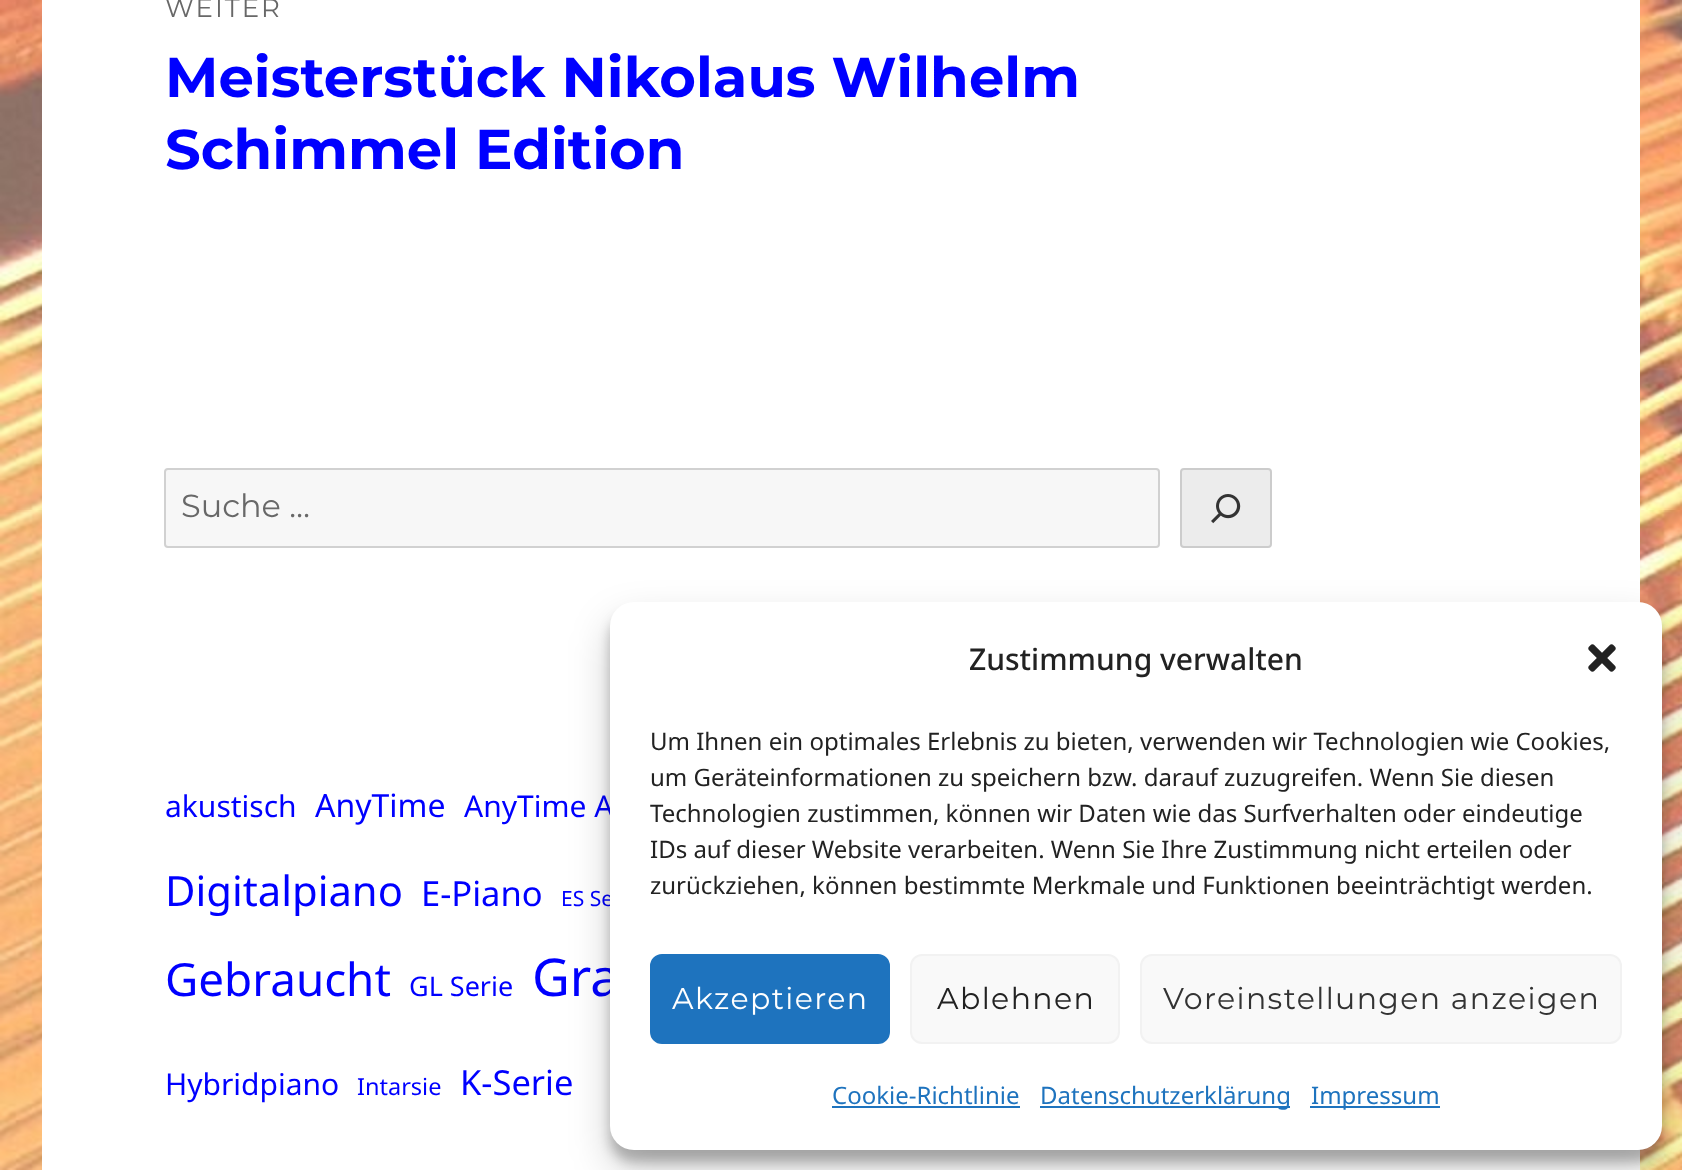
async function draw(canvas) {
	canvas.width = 1682;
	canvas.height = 1170;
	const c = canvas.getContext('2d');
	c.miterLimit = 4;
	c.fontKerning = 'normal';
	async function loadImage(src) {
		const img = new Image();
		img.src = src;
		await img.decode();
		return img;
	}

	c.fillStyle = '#fff';
	c.fillRect(0, 0, 1682, 1170);
	c.drawImage(await loadImage('img1.png'), 0, 0, 1682, 1170);
	c.fillRect(42, 0, 1598, 1170);
	c.letterSpacing = '2px';
	c.font = '100 26px Montserrat';
	c.fillStyle = '#686868';
	c.fillText('WEITER', 165, 17);
	c.letterSpacing = '0px';
	c.font = '100 56px "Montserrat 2"';
	c.fillStyle = '#00f';
	c.fillText('Meisterstück Nikolaus Wilhelm', 165, 97);
	c.fillText('Schimmel Edition', 165, 169);
	c.fillStyle = '#f7f7f7';
	c.beginPath();
	c.roundRect(165, 469, 994, 78, 3);
	c.fill();
	c.strokeStyle = '#d1d1d1';
	c.lineWidth = 2;
	c.stroke();
	c.font = '100 32px Montserrat';
	c.fillStyle = '#686868';
	c.fillText('Suche …', 181, 517);
	c.fillStyle = '#ececec';
	c.beginPath();
	c.roundRect(1181, 469, 90, 78, 3);
	c.fill();
	c.strokeStyle = '#ccc';
	c.stroke();
	c.drawImage(await loadImage('img2.png'), 1211, 494, 30, 30);
	c.font = '30px Noto Sans';
	c.fillStyle = '#00f';
	c.fillText('akustisch', 165, 817);
	c.font = '32px Noto Sans';
	c.fillText('AnyTime', 315, 817);
	c.font = '30px Noto Sans';
	c.fillText('AnyTime A', 464, 817);
	c.font = '41.75px Noto Sans';
	c.fillText('Digitalpiano', 165, 906);
	c.font = '34.5px Noto Sans';
	c.fillText('E-Piano', 421, 906);
	c.font = '21px Noto Sans';
	c.fillText('ES Se', 561, 906);
	c.font = '45.75px Noto Sans';
	c.fillText('Gebraucht', 165, 996);
	c.font = '27px Noto Sans';
	c.fillText('GL Serie', 409, 996);
	c.font = '52px Noto Sans';
	c.fillText('Gra', 532, 996);
	c.font = '30px Noto Sans';
	c.fillText('Hybridpiano', 165, 1095);
	c.font = '23.5px Noto Sans';
	c.fillText('Intarsie', 357, 1095);
	c.font = '34.5px Noto Sans';
	c.fillText('K-Serie', 460, 1095);
	c.fillStyle = '#0000003b';
	c.filter = 'blur(6px)';
	c.beginPath();
	c.roundRect(610, 614, 1052, 548, 24);
	c.fill();
	c.filter = 'none';
	c.fillStyle = '#00000030';
	c.filter = 'blur(20px)';
	c.beginPath();
	c.roundRect(610, 622, 1052, 548, 24);
	c.fill();
	c.filter = 'none';
	c.fillStyle = '#fff';
	c.beginPath();
	c.roundRect(610, 602, 1052, 548, 24);
	c.fill();
	c.font = '500 30px Noto Sans';
	c.fillStyle = '#222';
	c.fillText('Zustimmung verwalten', 969, 670);
	c.drawImage(await loadImage('img3.png'), 1588, 644, 28, 28);
	c.font = '24px Noto Sans';
	for (const [text, x, y] of [
		['Um Ihnen ein optimales Erlebnis zu bieten, verwenden wir Technologien wie Cookies,', 650, 750],
		['um Geräteinformationen zu speichern bzw. darauf zuzugreifen. Wenn Sie diesen', 650, 786],
		['Technologien zustimmen, können wir Daten wie das Surfverhalten oder eindeutige', 650, 822],
		['IDs auf dieser Website verarbeiten. Wenn Sie Ihre Zustimmung nicht erteilen oder', 650, 858],
		['zurückziehen, können bestimmte Merkmale und Funktionen beeinträchtigt werden.', 650, 894],
	]) {
		c.fillText(text, x, y);
	}
	c.fillStyle = '#1e73be';
	c.beginPath();
	c.roundRect(651, 955, 238, 88, 11);
	c.fill();
	c.strokeStyle = '#1e73be';
	c.stroke();
	c.letterSpacing = '1.4px';
	c.font = '100 30px Montserrat';
	c.fillStyle = '#fff';
	c.fillText('Akzeptieren', 672, 1009);
	c.fillStyle = '#f9f9f9';
	c.beginPath();
	c.roundRect(911, 955, 208, 88, 11);
	c.fill();
	c.strokeStyle = '#f2f2f2';
	c.stroke();
	c.fillStyle = '#222';
	c.fillText('Ablehnen', 937, 1009);
	c.fillStyle = '#f9f9f9';
	c.beginPath();
	c.roundRect(1141, 955, 480, 88, 11);
	c.fill();
	c.stroke();
	c.fillStyle = '#333';
	c.fillText('Voreinstellungen anzeigen', 1163, 1009);
	c.letterSpacing = '0px';
	c.font = '24px Noto Sans';
	c.fillStyle = '#1e73be';
	c.fillText('Cookie-Richtlinie', 832, 1104);
	c.fillRect(832, 1106, 188, 2);
	c.fillRect(1040, 1106, 250, 2);
	c.fillText('Datenschutzerklärung', 1040, 1104);
	c.fillRect(1310, 1106, 130, 2);
	c.fillText('Impressum', 1311, 1104);
}

draw(document.querySelector('canvas'));
